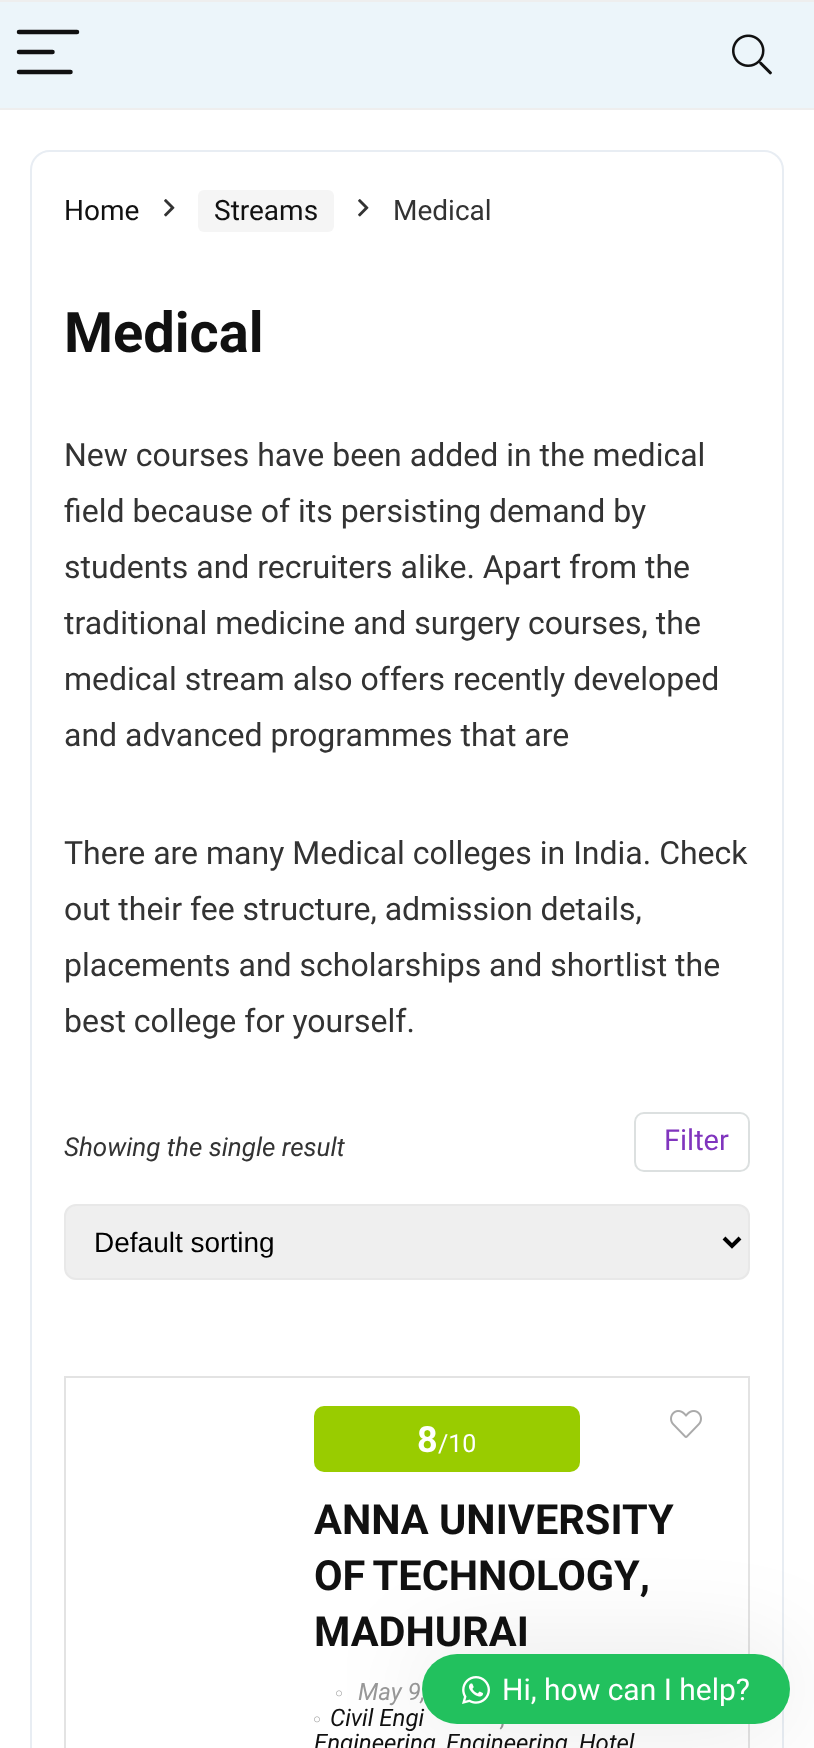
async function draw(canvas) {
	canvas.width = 814;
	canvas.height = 1748;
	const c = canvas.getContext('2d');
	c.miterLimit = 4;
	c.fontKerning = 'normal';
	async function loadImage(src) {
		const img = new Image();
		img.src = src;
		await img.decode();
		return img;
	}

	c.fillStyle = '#fff';
	c.fillRect(0, 0, 814, 1748);
	for (const [x, y, w, h, color] of [
		[0, 2, 814, 106, '#ecf5fa'],
		[0, 0, 814, 2, '#eee'],
		[0, 108, 814, 2, '#eee'],
	]) {
		c.fillStyle = color;
		c.fillRect(x, y, w, h);
	}
	c.beginPath();
	c.moveTo(19, 32);
	c.lineTo(77, 32);
	c.strokeStyle = '#111';
	c.lineWidth = 4.5;
	c.lineCap = 'round';
	c.stroke();
	c.beginPath();
	c.moveTo(19, 52);
	c.lineTo(52.5, 52);
	c.moveTo(19, 72);
	c.lineTo(70.5, 72);
	c.stroke();
	c.drawImage(await loadImage('img1.png'), 732, 34, 40, 41);
	c.beginPath();
	c.roundRect(31, 151, 752, 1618, 19);
	c.strokeStyle = '#e8edf3';
	c.lineWidth = 2;
	c.stroke();
	c.font = '28px Roboto';
	c.fillStyle = '#111';
	c.fillText('Home', 64, 220);
	c.drawImage(await loadImage('img2.png'), 164, 199, 11, 18);
	c.fillStyle = '#f5f5f5';
	c.beginPath();
	c.roundRect(198, 190, 136, 42, 6);
	c.fill();
	c.fillStyle = '#111';
	c.fillText('Streams', 214, 220);
	c.drawImage(await loadImage('img2.png'), 358, 199, 11, 18);
	c.fillStyle = '#333';
	c.fillText('Medical', 393, 220);
	c.font = 'bold 56px Roboto';
	c.fillStyle = '#111';
	c.fillText('Medical', 64, 352);
	c.font = '32px Roboto';
	c.fillStyle = '#333';
	for (const [text, x, y] of [
		['New courses have been added in the medical', 64, 466],
		['field because of its persisting demand by', 64, 522],
		['students and recruiters alike. Apart from the', 64, 578],
		['traditional medicine and surgery courses, the', 64, 634],
		['medical stream also offers recently developed', 64, 690],
		['and advanced programmes that are', 64, 746],
		['There are many Medical colleges in India. Check', 64, 864],
		['out their fee structure, admission details,', 64, 920],
		['placements and scholarships and shortlist the', 64, 976],
		['best college for yourself.', 64, 1032],
	]) {
		c.fillText(text, x, y);
	}
	c.font = 'italic 26px Roboto';
	c.fillText('Showing the single result', 64, 1156);
	c.beginPath();
	c.roundRect(635, 1113, 114, 58, 9);
	c.strokeStyle = '#dce0e0';
	c.stroke();
	c.font = '29px Roboto';
	c.fillStyle = '#8035be';
	c.fillText('Filter', 664, 1150);
	c.fillStyle = '#efefef';
	c.beginPath();
	c.roundRect(65, 1205, 684, 74, 11);
	c.fill();
	c.strokeStyle = '#e8e8e8';
	c.stroke();
	c.beginPath();
	c.moveTo(724, 1238);
	c.lineTo(732, 1246);
	c.lineTo(740, 1238);
	c.strokeStyle = '#000';
	c.lineWidth = 4;
	c.lineCap = 'butt';
	c.stroke();
	c.font = '28px Liberation Sans';
	c.fillStyle = '#000';
	c.fillText('Default sorting', 94, 1252);
	c.strokeStyle = '#e3e3e3';
	c.lineWidth = 2;
	c.strokeRect(65, 1377, 684, 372);
	c.fillStyle = '#9c0';
	c.beginPath();
	c.roundRect(314, 1406, 266, 66, 10);
	c.fill();
	c.font = 'bold 36px Roboto';
	c.fillStyle = '#fff';
	c.fillText('8', 417, 1452);
	c.font = '25px Roboto';
	c.fillText('/10', 438, 1452);
	c.font = 'bold 41.5px Roboto';
	c.fillStyle = '#111';
	c.fillText('ANNA UNIVERSITY', 314, 1534);
	c.wordSpacing = '-2px';
	c.fillText('OF TECHNOLOGY,', 314, 1590);
	c.wordSpacing = '0px';
	c.fillText('MADHURAI', 314, 1646);
	c.drawImage(await loadImage('img3.png'), 336, 1690, 6, 7);
	c.font = 'italic 24px Roboto';
	c.fillStyle = '#999';
	c.fillText('May 9,', 358, 1700);
	c.drawImage(await loadImage('img3.png'), 314, 1716, 6, 7);
	c.fillStyle = '#111';
	c.fillText('Civil Engi', 330, 1726);
	c.fillStyle = '#999';
	c.fillText(',', 501, 1726);
	c.fillStyle = '#111';
	for (const [text, x, y] of [
		['Engineering', 314, 1751],
		['Engineering', 446, 1751],
		['Hotel', 579, 1751],
	]) {
		c.fillText(text, x, y);
	}
	c.drawImage(await loadImage('img4.png'), 670, 1410, 32, 28);
	c.fillStyle = '#0000001a';
	c.filter = 'blur(50px)';
	c.beginPath();
	c.roundRect(422, 1654, 368, 70, 35);
	c.fill();
	c.filter = 'none';
	c.fillStyle = '#22c15e';
	c.beginPath();
	c.roundRect(422, 1654, 368, 70, 35);
	c.fill();
	c.drawImage(await loadImage('img5.png'), 462, 1676, 28, 28);
	c.font = '30px Roboto';
	c.fillStyle = '#fff';
	c.fillText('Hi, how can I help?', 502, 1700);
}

draw(document.querySelector('canvas'));
